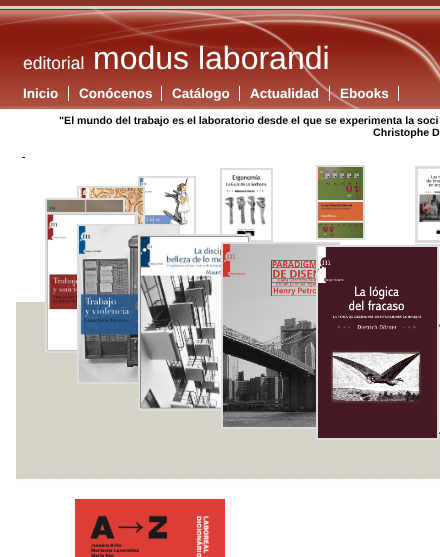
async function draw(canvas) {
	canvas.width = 440;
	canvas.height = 557;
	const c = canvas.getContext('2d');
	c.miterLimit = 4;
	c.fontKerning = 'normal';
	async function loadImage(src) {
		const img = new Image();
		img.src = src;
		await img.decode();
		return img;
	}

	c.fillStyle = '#fff';
	c.fillRect(0, 0, 440, 557);
	c.drawImage(await loadImage('img1.png'), 0, 0, 440, 86);
	c.font = '17.5px Liberation Sans';
	c.fillText('editorial', 23, 69);
	c.font = '32px Liberation Sans';
	c.fillText('modus laborandi', 93, 69);
	c.drawImage(await loadImage('img2.png'), 0, 86, 440, 23);
	c.fillRect(68, 86, 1, 15);
	c.font = 'bold 13.5px Liberation Sans';
	c.fillText('Inicio', 23, 98);
	c.fillRect(161, 86, 1, 15);
	c.fillText('Conócenos', 79, 98);
	c.fillRect(239, 86, 1, 15);
	c.fillText('Catálogo', 172, 98);
	c.fillRect(329, 86, 1, 15);
	c.fillText('Actualidad', 250, 98);
	c.fillRect(398, 86, 1, 15);
	c.fillText('Ebooks', 340, 98);
	c.font = 'bold 10.65px Liberation Sans';
	c.fillStyle = '#000';
	c.fillText('"El mundo del trabajo es el laboratorio desde el que se experimenta la soci', 59, 124);
	c.fillText('Christophe D', 373, 136);
	c.drawImage(await loadImage('img3.png'), 16, 299, 424, 182);
	c.fillStyle = '#00e';
	c.fillRect(22, 157, 3, 1);
	c.strokeStyle = '#ddd';
	c.lineWidth = 2;
	c.strokeRect(139, 177, 56, 88);
	c.drawImage(await loadImage('img5.png'), 140, 178, 50, 56);
	c.strokeRect(78, 187, 66, 94);
	c.drawImage(await loadImage('img4.png'), 79, 188, 64, 36);
	c.strokeRect(221, 169, 51, 72);
	c.drawImage(await loadImage('img6.png'), 224, 174, 43, 65);
	c.strokeRect(317, 166, 47, 73);
	c.drawImage(await loadImage('img7.png'), 318, 167, 45, 71);
	c.strokeRect(416, 167, 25, 75);
	c.drawImage(await loadImage('img8.png'), 417, 168, 23, 73);
	c.strokeRect(46, 199, 78, 122);
	c.drawImage(await loadImage('img9.png'), 47, 200, 76, 12);
	c.strokeRect(46, 213, 91, 139);
	c.drawImage(await loadImage('img10.png'), 47, 214, 89, 137);
	c.strokeRect(78, 225, 101, 158);
	c.drawImage(await loadImage('img11.png'), 79, 226, 99, 156);
	c.strokeRect(139, 235, 111, 175);
	c.drawImage(await loadImage('img12.png'), 140, 236, 109, 173);
	c.strokeRect(222, 243, 117, 185);
	c.drawImage(await loadImage('img13.png'), 223, 244, 115, 183);
	c.strokeRect(416, 245, 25, 190);
	c.drawImage(await loadImage('img14.png'), 439, 246, 1, 188);
	c.strokeRect(317, 246, 121, 193);
	c.drawImage(await loadImage('img15.png'), 318, 247, 119, 191);
	c.drawImage(await loadImage('img16.png'), 75, 499, 150, 58);
}

draw(document.querySelector('canvas'));
